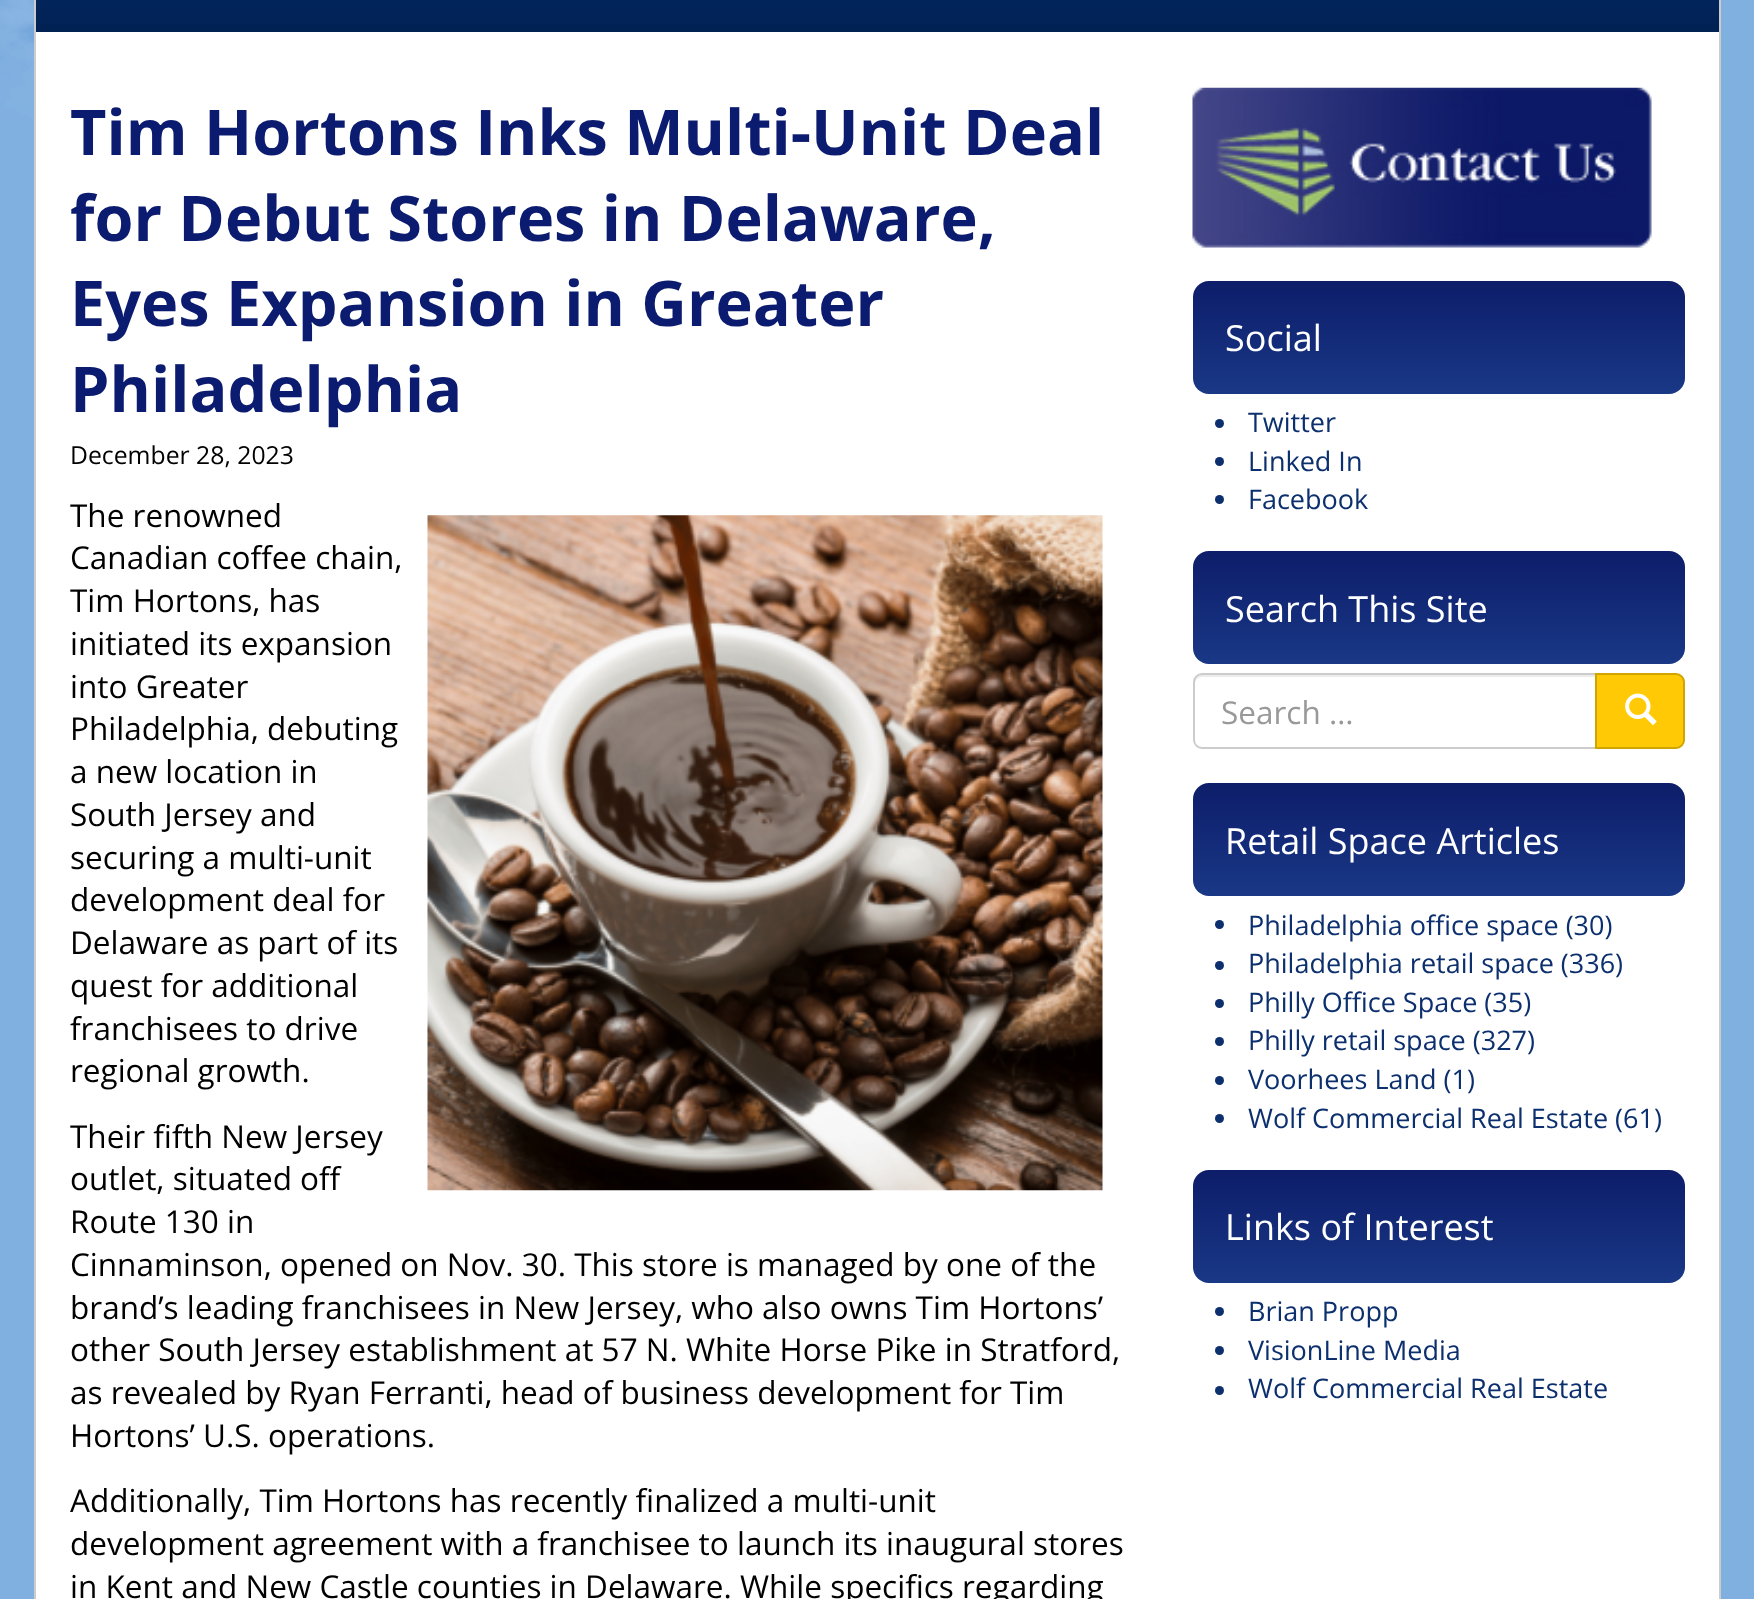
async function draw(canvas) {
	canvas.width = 1754;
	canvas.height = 1599;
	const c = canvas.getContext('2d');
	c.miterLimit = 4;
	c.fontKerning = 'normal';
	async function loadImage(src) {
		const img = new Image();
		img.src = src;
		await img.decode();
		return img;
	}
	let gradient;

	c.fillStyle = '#7fb0e0';
	c.fillRect(0, 0, 1754, 1599);
	c.drawImage(await loadImage('img1.png'), 0, 0, 34, 161);
	for (const [x, y, w, h, color] of [
		[36, 32, 1683, 1567, '#fff'],
		[1719, 0, 2, 1599, '#ccc'],
		[34, 0, 2, 1599, '#ccc'],
	]) {
		c.fillStyle = color;
		c.fillRect(x, y, w, h);
	}
	gradient = c.createLinearGradient(878, -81, 878, 32);
	gradient.addColorStop(0, '#022d70');
	gradient.addColorStop(1, '#012153');
	c.fillStyle = gradient;
	c.fillRect(36, 0, 1683, 32);
	c.font = 'bold 63px Open Sans';
	c.fillStyle = '#0b1b6f';
	for (const [text, x, y] of [
		['Tim Hortons Inks Multi-Unit Deal', 70, 155],
		['for Debut Stores in Delaware,', 70, 241],
		['Eyes Expansion in Greater', 70, 326],
		['Philadelphia', 70, 412],
	]) {
		c.fillText(text, x, y);
	}
	c.font = '24.75px Open Sans';
	c.fillStyle = '#000';
	c.fillText('December 28, 2023', 70, 464);
	c.font = '31.5px Open Sans';
	for (const [text, x, y] of [
		['The renowned', 70, 527],
		['Canadian coffee chain,', 70, 569],
		['Tim Hortons, has', 70, 612],
		['initiated its expansion', 70, 655],
		['into Greater', 70, 698],
		['Philadelphia, debuting', 70, 740],
		['a new location in', 70, 783],
		['South Jersey and', 70, 826],
		['securing a multi-unit', 70, 869],
		['development deal for', 70, 911],
		['Delaware as part of its', 70, 954],
		['quest for additional', 70, 997],
		['franchisees to drive', 70, 1040],
		['regional growth.', 70, 1082],
	]) {
		c.fillText(text, x, y);
	}
	c.drawImage(await loadImage('img2.png'), 427, 515, 676, 676);
	for (const [text, x, y] of [
		['Their fifth New Jersey', 70, 1148],
		['outlet, situated off', 70, 1190],
		['Route 130 in', 70, 1233],
		['Cinnaminson, opened on Nov. 30. This store is managed by one of the', 70, 1276],
		['brand’s leading franchisees in New Jersey, who also owns Tim Hortons’', 70, 1319],
		['other South Jersey establishment at 57 N. White Horse Pike in Stratford,', 70, 1361],
		['as revealed by Ryan Ferranti, head of business development for Tim', 70, 1404],
		['Hortons’ U.S. operations.', 70, 1447],
		['Additionally, Tim Hortons has recently finalized a multi-unit', 70, 1512],
		['development agreement with a franchisee to launch its inaugural stores', 70, 1555],
		['in Kent and New Castle counties in Delaware. While specifics regarding', 70, 1598],
	]) {
		c.fillText(text, x, y);
	}
	c.drawImage(await loadImage('img3.png'), 1192, 87, 460, 161);
	gradient = c.createLinearGradient(1439, 281, 1439, 394);
	gradient.addColorStop(0, '#0d1d6a');
	gradient.addColorStop(1, '#193886');
	c.fillStyle = gradient;
	c.beginPath();
	c.roundRect(1193, 281, 492, 113, 16);
	c.fill();
	c.font = '36px Open Sans';
	c.fillStyle = '#fff';
	c.fillText('Social', 1225, 351);
	c.fillStyle = '#0c2f6e';
	c.beginPath();
	c.arc(1219.5, 423.5, 4.5, 0, 2 * Math.PI);
	c.fill();
	c.font = '27px Open Sans';
	c.fillText('Twitter', 1248, 432);
	c.beginPath();
	c.arc(1219.5, 461.5, 4.5, 0, 2 * Math.PI);
	c.fill();
	c.fillText('Linked In', 1248, 471);
	c.beginPath();
	c.arc(1219.5, 499.5, 4.5, 0, 2 * Math.PI);
	c.fill();
	c.fillText('Facebook', 1248, 509);
	gradient = c.createLinearGradient(1439, 551, 1439, 664);
	gradient.addColorStop(0, '#0d1d6a');
	gradient.addColorStop(1, '#193886');
	c.fillStyle = gradient;
	c.beginPath();
	c.roundRect(1193, 551, 492, 113, 16);
	c.fill();
	c.font = '36px Open Sans';
	c.fillStyle = '#fff';
	c.fillText('Search This Site', 1225, 622);
	c.fillStyle = '#ececec';
	c.beginPath();
	c.moveTo(1202, 677);
	c.lineTo(1595, 677);
	c.lineTo(1595, 675);
	c.lineTo(1202, 675);
	c.bezierCurveTo(1198, 675, 1195, 678, 1195, 682);
	c.lineTo(1195, 684);
	c.bezierCurveTo(1195, 680, 1198, 677, 1202, 677);
	c.closePath();
	c.fill();
	c.beginPath();
	c.roundRect(1194, 674, 403, 74, [8, 0, 0, 8]);
	c.strokeStyle = '#ccc';
	c.lineWidth = 2;
	c.stroke();
	c.font = '31.5px Open Sans';
	c.fillStyle = '#999';
	c.fillText('Search …', 1221, 724);
	c.fillStyle = '#ffca05';
	c.beginPath();
	c.roundRect(1596, 674, 88, 74, [0, 8, 8, 0]);
	c.fill();
	c.strokeStyle = '#d1a500';
	c.stroke();
	c.drawImage(await loadImage('img4.png'), 1625, 693, 32, 32);
	gradient = c.createLinearGradient(1439, 783, 1439, 896);
	gradient.addColorStop(0, '#0d1d6a');
	gradient.addColorStop(1, '#193886');
	c.fillStyle = gradient;
	c.beginPath();
	c.roundRect(1193, 783, 492, 113, 16);
	c.fill();
	c.font = '36px Open Sans';
	c.fillStyle = '#fff';
	c.fillText('Retail Space Articles', 1225, 854);
	c.fillStyle = '#0c2f6e';
	c.beginPath();
	c.arc(1219.5, 924.5, 4.5, 0, 2 * Math.PI);
	c.fill();
	c.font = '27px Open Sans';
	c.fillText('Philadelphia office space (30)', 1248, 935);
	c.beginPath();
	c.arc(1219.5, 965.5, 4.5, 0, 2 * Math.PI);
	c.fill();
	c.fillText('Philadelphia retail space (336)', 1248, 973);
	c.beginPath();
	c.arc(1219.5, 1003.5, 4.5, 0, 2 * Math.PI);
	c.fill();
	c.fillText('Philly Office Space (35)', 1248, 1012);
	c.beginPath();
	c.arc(1219.5, 1041.5, 4.5, 0, 2 * Math.PI);
	c.fill();
	c.fillText('Philly retail space (327)', 1248, 1050);
	c.beginPath();
	c.arc(1219.5, 1080.5, 4.5, 0, 2 * Math.PI);
	c.fill();
	c.fillText('Voorhees Land (1)', 1248, 1089);
	c.beginPath();
	c.arc(1219.5, 1118.5, 4.5, 0, 2 * Math.PI);
	c.fill();
	c.fillText('Wolf Commercial Real Estate (61)', 1248, 1128);
	gradient = c.createLinearGradient(1439, 1170, 1439, 1283);
	gradient.addColorStop(0, '#0d1d6a');
	gradient.addColorStop(1, '#193886');
	c.fillStyle = gradient;
	c.beginPath();
	c.roundRect(1193, 1170, 492, 113, 16);
	c.fill();
	c.font = '36px Open Sans';
	c.fillStyle = '#fff';
	c.fillText('Links of Interest', 1225, 1240);
	c.fillStyle = '#0c2f6e';
	c.beginPath();
	c.arc(1219.5, 1311.5, 4.5, 0, 2 * Math.PI);
	c.fill();
	c.font = '27px Open Sans';
	c.fillText('Brian Propp', 1248, 1321);
	c.beginPath();
	c.arc(1219.5, 1350.5, 4.5, 0, 2 * Math.PI);
	c.fill();
	c.fillText('VisionLine Media', 1248, 1360);
	c.beginPath();
	c.arc(1219.5, 1390.5, 4.5, 0, 2 * Math.PI);
	c.fill();
	c.fillText('Wolf Commercial Real Estate', 1248, 1398);
}

draw(document.querySelector('canvas'));
